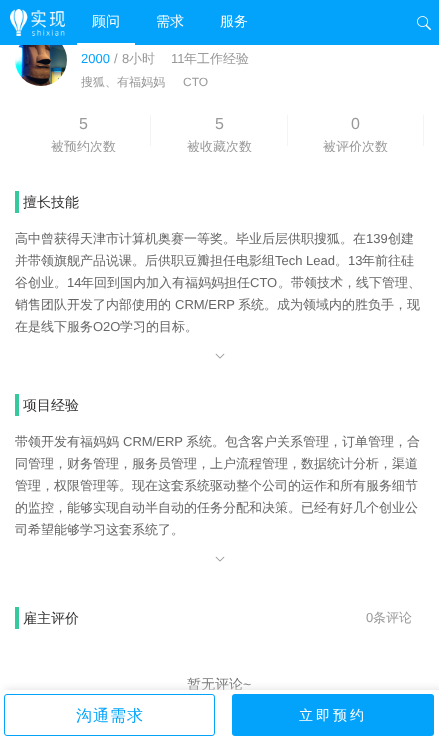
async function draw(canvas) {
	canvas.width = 439;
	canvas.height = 740;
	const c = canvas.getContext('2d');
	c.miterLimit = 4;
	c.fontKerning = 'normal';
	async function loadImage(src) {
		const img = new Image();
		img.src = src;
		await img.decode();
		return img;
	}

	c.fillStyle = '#fff';
	c.fillRect(0, 0, 439, 740);
	c.fillStyle = '#03a3fc';
	c.fillRect(0, 0, 439, 45);
	c.drawImage(await loadImage('img1.png'), 10, 9, 55, 27);
	c.fillStyle = '#fff';
	c.fillRect(77, 43, 58, 2);
	c.font = '500 14px WenQuanYi Zen Hei';
	for (const [text, x, y] of [
		['顾问', 92, 26],
		['需求', 156, 26],
		['服务', 220, 26],
	]) {
		c.fillText(text, x, y);
	}
	c.drawImage(await loadImage('img2.png'), 417, 16, 14, 15);
	c.drawImage(await loadImage('img3.png'), 15, 45, 52, 41);
	c.font = '13px Liberation Sans';
	c.fillStyle = '#03a3fc';
	c.fillText('2000', 81, 63);
	c.fillStyle = '#999';
	c.fillText('/', 114, 63);
	c.fillText('8', 122, 63);
	c.font = '500 13px WenQuanYi Zen Hei';
	c.fillText('小时', 129, 63);
	c.font = '13px Liberation Sans';
	c.fillText('11', 171, 63);
	c.font = '500 13px WenQuanYi Zen Hei';
	c.fillText('年工作经验', 184, 63);
	c.font = '500 12px WenQuanYi Zen Hei';
	c.fillText('搜狐、有福妈妈', 81, 86);
	c.font = '12px Liberation Sans';
	c.fillText('CTO', 183, 86);
	c.font = '16px Liberation Sans';
	c.fillText('5', 79, 129);
	c.fillStyle = '#f4f4f4';
	c.fillRect(150, 115, 1, 31);
	c.save();
	c.beginPath();
	c.rect(15, 110, 409, 42);
	c.clip();
	c.font = '500 13px WenQuanYi Zen Hei';
	c.fillStyle = '#999';
	c.fillText('被预约次数', 51, 151);
	c.restore();
	c.fillStyle = '#999';
	c.fillText('5', 215, 129);
	c.fillStyle = '#f4f4f4';
	c.fillRect(287, 115, 1, 31);
	c.save();
	c.beginPath();
	c.rect(15, 110, 409, 42);
	c.clip();
	c.font = '500 13px WenQuanYi Zen Hei';
	c.fillStyle = '#999';
	c.fillText('被收藏次数', 187, 151);
	c.restore();
	c.fillStyle = '#999';
	c.fillText('0', 351, 129);
	c.fillStyle = '#f4f4f4';
	c.fillRect(423, 115, 1, 31);
	c.save();
	c.beginPath();
	c.rect(15, 110, 409, 42);
	c.clip();
	c.font = '500 13px WenQuanYi Zen Hei';
	c.fillStyle = '#999';
	c.fillText('被评价次数', 323, 151);
	c.restore();
	c.fillStyle = '#35c99d';
	c.fillRect(15, 191, 4, 22);
	c.font = '500 14px WenQuanYi Zen Hei';
	c.fillStyle = '#333';
	c.fillText('擅长技能', 23, 207);
	c.font = '500 13px WenQuanYi Zen Hei';
	c.fillStyle = '#666';
	c.fillText('高中曾获得天津市计算机奥赛一等奖。毕业后层供职搜狐。在', 15, 243);
	c.font = '13px Liberation Sans';
	c.fillText('139', 366, 243);
	c.font = '500 13px WenQuanYi Zen Hei';
	c.fillText('创建', 388, 243);
	c.fillText('并带领旗舰产品说课。后供职豆瓣担任电影组', 15, 265);
	c.font = '13px Liberation Sans';
	c.fillText('Tech Lead', 275, 265);
	c.font = '500 13px WenQuanYi Zen Hei';
	c.fillText('。', 335, 265);
	c.font = '13px Liberation Sans';
	c.fillText('13', 348, 265);
	c.font = '500 13px WenQuanYi Zen Hei';
	c.fillText('年前往硅', 362, 265);
	c.fillText('谷创业。', 15, 287);
	c.font = '13px Liberation Sans';
	c.fillText('14', 67, 287);
	c.font = '500 13px WenQuanYi Zen Hei';
	c.fillText('年回到国内加入有福妈妈担任', 81, 287);
	c.font = '13px Liberation Sans';
	c.fillText('CTO', 250, 287);
	c.font = '500 13px WenQuanYi Zen Hei';
	c.fillText('。带领技术，线下管理、', 278, 287);
	c.fillText('销售团队开发了内部使用的', 15, 309);
	c.font = '13px Liberation Sans';
	c.fillText('CRM/ERP', 175, 309);
	c.font = '500 13px WenQuanYi Zen Hei';
	c.fillText('系统。成为领域内的胜负手，现', 238, 309);
	c.fillText('在是线下服务', 15, 331);
	c.font = '13px Liberation Sans';
	c.fillText('O2O', 93, 331);
	c.font = '500 13px WenQuanYi Zen Hei';
	c.fillText('学习的目标。', 120, 331);
	c.drawImage(await loadImage('img4.png'), 215, 353, 10, 6);
	c.fillStyle = '#35c99d';
	c.fillRect(15, 394, 4, 22);
	c.font = '500 14px WenQuanYi Zen Hei';
	c.fillStyle = '#333';
	c.fillText('项目经验', 23, 410);
	c.font = '500 13px WenQuanYi Zen Hei';
	c.fillStyle = '#666';
	c.fillText('带领开发有福妈妈', 15, 446);
	c.font = '13px Liberation Sans';
	c.fillText('CRM/ERP', 123, 446);
	c.font = '500 13px WenQuanYi Zen Hei';
	for (const [text, x, y] of [
		['系统。包含客户关系管理，订单管理，合', 186, 446],
		['同管理，财务管理，服务员管理，上户流程管理，数据统计分析，渠道', 15, 468],
		['管理，权限管理等。现在这套系统驱动整个公司的运作和所有服务细节', 15, 490],
		['的监控，能够实现自动半自动的任务分配和决策。已经有好几个创业公', 15, 512],
		['司希望能够学习这套系统了。', 15, 534],
	]) {
		c.fillText(text, x, y);
	}
	c.drawImage(await loadImage('img4.png'), 215, 556, 10, 6);
	c.fillStyle = '#35c99d';
	c.fillRect(15, 607, 4, 22);
	c.font = '500 14px WenQuanYi Zen Hei';
	c.fillStyle = '#333';
	c.fillText('雇主评价', 23, 623);
	c.font = '13px Liberation Sans';
	c.fillStyle = '#999';
	c.fillText('0', 366, 622);
	c.font = '500 13px WenQuanYi Zen Hei';
	c.fillText('条评论', 373, 622);
	c.font = '500 14px WenQuanYi Zen Hei';
	c.fillStyle = '#777';
	c.fillText('暂无评论', 187, 689);
	c.font = '14px Liberation Sans';
	c.fillText('~', 243, 689);
	c.fillStyle = '#ddd';
	c.filter = 'blur(4px)';
	c.beginPath();
	c.rect(5, 690, 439, 50);
	c.fill();
	c.filter = 'none';
	c.fillStyle = '#fff';
	c.fillRect(0, 690, 439, 50);
	c.beginPath();
	c.roundRect(4.5, 694.5, 210, 41, 2.5);
	c.strokeStyle = '#03a3fc';
	c.stroke();
	c.letterSpacing = '1px';
	c.font = '500 16px WenQuanYi Zen Hei';
	c.fillStyle = '#03a3fc';
	c.fillText('沟通需求', 76, 721);
	c.beginPath();
	c.roundRect(232, 694, 202, 42, 3);
	c.fill();
	c.letterSpacing = '3px';
	c.font = '500 14px WenQuanYi Zen Hei';
	c.fillStyle = '#fff';
	c.fillText('立即预约', 299, 720);
}

draw(document.querySelector('canvas'));
